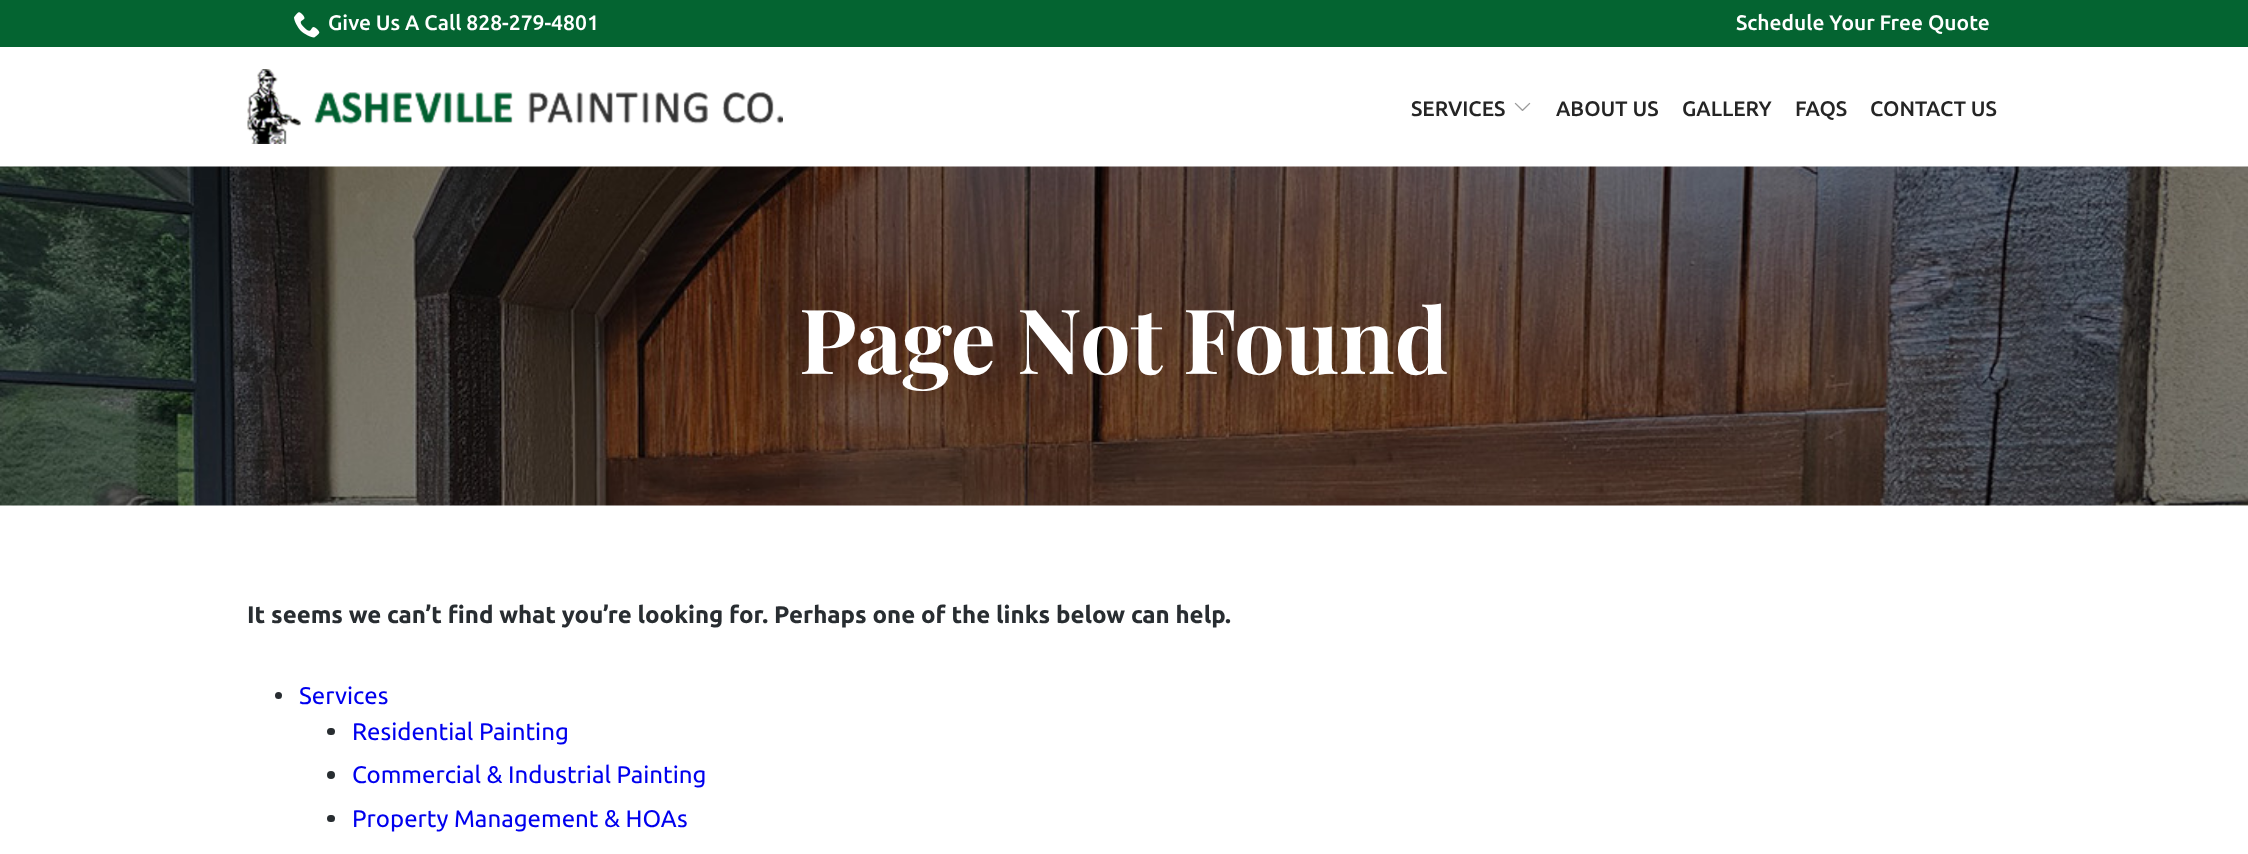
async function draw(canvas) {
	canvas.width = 2248;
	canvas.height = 854;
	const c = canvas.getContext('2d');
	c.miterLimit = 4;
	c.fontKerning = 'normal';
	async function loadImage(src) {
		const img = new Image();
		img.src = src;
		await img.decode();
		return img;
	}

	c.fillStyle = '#fff';
	c.fillRect(0, 0, 2248, 854);
	c.fillStyle = '#046431';
	c.fillRect(0, 0, 2248, 47);
	c.drawImage(await loadImage('img1.png'), 294, 12, 26, 26);
	c.font = '500 21px Ubuntu';
	c.fillStyle = '#fff';
	c.fillText('Give Us A Call 828-279-4801', 328, 30);
	c.fillText('Schedule Your Free Quote', 1736, 30);
	c.drawImage(await loadImage('img2.png'), 247, 69, 536, 75);
	c.fillStyle = '#252525';
	c.fillText('SERVICES', 1411, 116);
	c.drawImage(await loadImage('img3.png'), 1514, 102, 17, 9);
	for (const [text, x, y] of [
		['ABOUT US', 1556, 116],
		['GALLERY', 1682, 116],
		['FAQS', 1795, 116],
		['CONTACT US', 1870, 116],
	]) {
		c.fillText(text, x, y);
	}
	c.drawImage(await loadImage('img4.png'), 0, 166, 2248, 340);
	c.font = 'bold 90px Playfair Display';
	c.fillStyle = '#fff';
	c.fillText('Page Not Found', 799, 374);
	c.font = 'bold 24px Ubuntu';
	c.fillStyle = '#282d31';
	c.fillText('It seems we can’t find what you’re looking for. Perhaps one of the links below can help.', 247, 623);
	c.beginPath();
	c.arc(278.5, 695.5, 3.5, 0, 2 * Math.PI);
	c.fill();
	c.font = '24px Ubuntu';
	c.fillStyle = '#00e';
	c.fillText('Services', 299, 704);
	c.fillStyle = '#282d31';
	c.beginPath();
	c.roundRect(327, 728, 8, 7, 3.5);
	c.fill();
	c.fillStyle = '#00e';
	c.fillText('Residential Painting', 352, 740);
	c.fillStyle = '#282d31';
	c.beginPath();
	c.arc(331, 775, 4, 0, 2 * Math.PI);
	c.fill();
	c.fillStyle = '#00e';
	c.fillText('Commercial & Industrial Painting', 352, 783);
	c.fillStyle = '#282d31';
	c.beginPath();
	c.roundRect(327, 815, 8, 7, 3.5);
	c.fill();
	c.fillStyle = '#00e';
	c.fillText('Property Management & HOAs', 352, 827);
}

draw(document.querySelector('canvas'));
